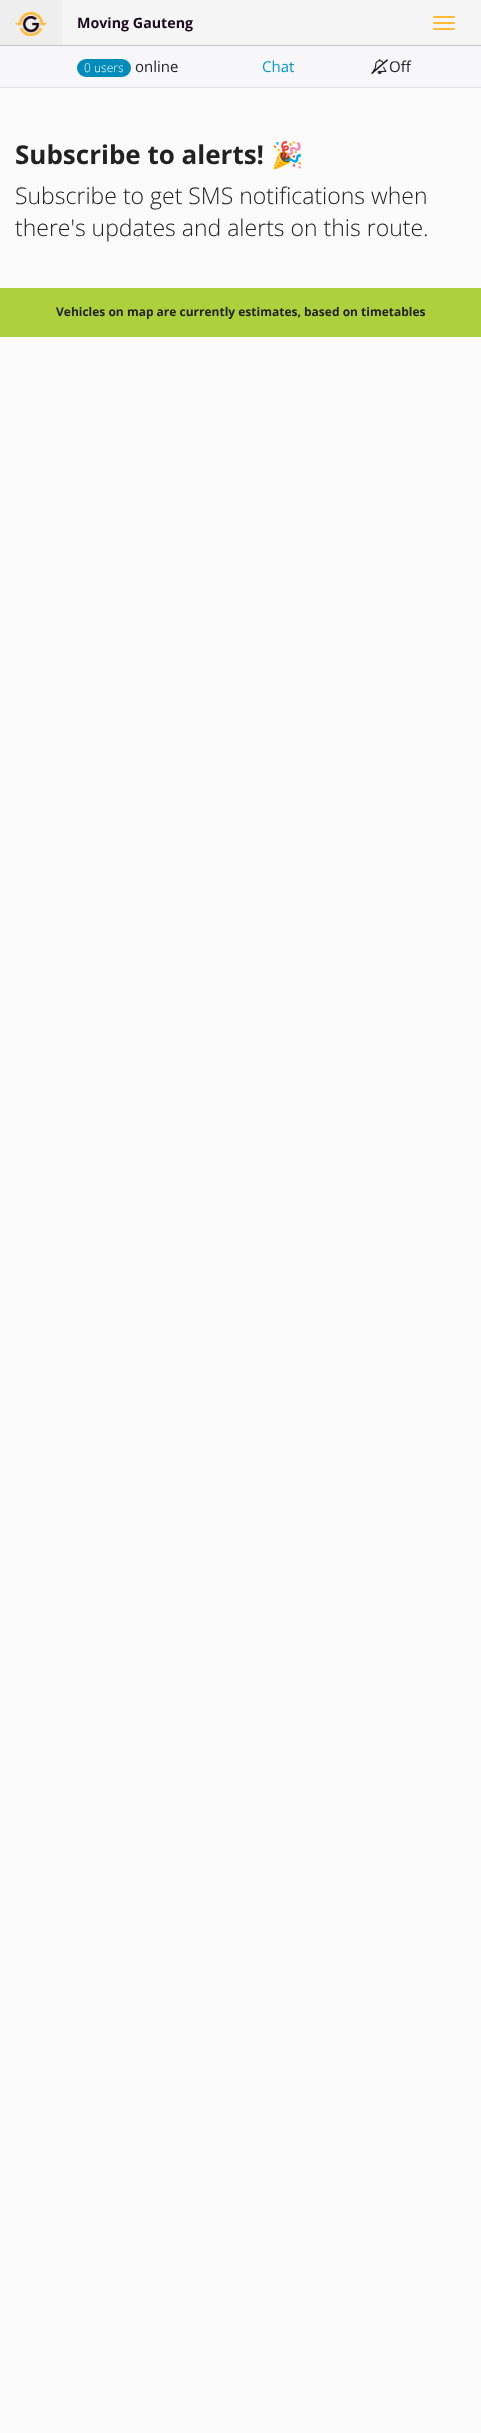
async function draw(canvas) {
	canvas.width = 481;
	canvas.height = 2433;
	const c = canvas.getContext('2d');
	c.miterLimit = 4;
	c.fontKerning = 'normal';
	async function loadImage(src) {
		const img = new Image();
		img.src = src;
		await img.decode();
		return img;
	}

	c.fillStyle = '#fbfbfb';
	c.fillRect(0, 0, 481, 2433);
	for (const [x, y, w, h, color] of [
		[62, 0, 419, 45, '#f5f5f5'],
		[0, 45, 481, 1, '#c3c3c3'],
		[0, 0, 62, 45, '#eee'],
	]) {
		c.fillStyle = color;
		c.fillRect(x, y, w, h);
	}
	c.drawImage(await loadImage('img1.png'), 15, 12, 32, 24);
	c.font = 'bold 14.25px Open Sans';
	c.fillStyle = '#1c0920';
	c.fillText('Moving Gauteng', 77, 28);
	c.fillStyle = '#fb3';
	c.beginPath();
	c.roundRect(433, 16, 22, 2, 1);
	c.fill();
	c.beginPath();
	c.roundRect(433, 22, 22, 2, 1);
	c.fill();
	c.beginPath();
	c.roundRect(433, 28, 22, 2, 1);
	c.fill();
	c.fillStyle = '#f7f7f9';
	c.fillRect(0, 46, 481, 41);
	c.fillStyle = '#e1e1e1';
	c.fillRect(0, 87, 481, 1);
	c.fillStyle = '#008cba';
	c.beginPath();
	c.roundRect(77, 59, 54, 18, 9);
	c.fill();
	c.font = '300 12px Open Sans';
	c.fillStyle = '#fff';
	c.fillText('0 users', 84, 72);
	c.font = '15px Open Sans';
	c.fillStyle = '#222';
	c.fillText('online', 135, 72);
	c.fillStyle = '#09c';
	c.fillText('Chat', 262, 72);
	c.drawImage(await loadImage('img2.png'), 371, 59, 17, 16);
	c.fillStyle = '#222';
	c.fillText('Off', 389, 72);
	c.font = 'bold 26px Open Sans';
	c.fillText('Subscribe to alerts!', 15, 164);
	c.font = 'bold 26px Noto Color Emoji';
	c.fillText('🎉', 271, 164);
	c.font = '300 23px Open Sans';
	c.fillText('Subscribe to get SMS notifications when', 15, 204);
	c.fillText('there\'s updates and alerts on this route.', 15, 236);
	c.fillStyle = '#add13d';
	c.fillRect(0, 288, 481, 49);
	c.font = 'bold 12px Open Sans';
	c.fillStyle = '#222';
	c.fillText('Vehicles on map are currently estimates, based on timetables', 56, 316);
}

draw(document.querySelector('canvas'));
